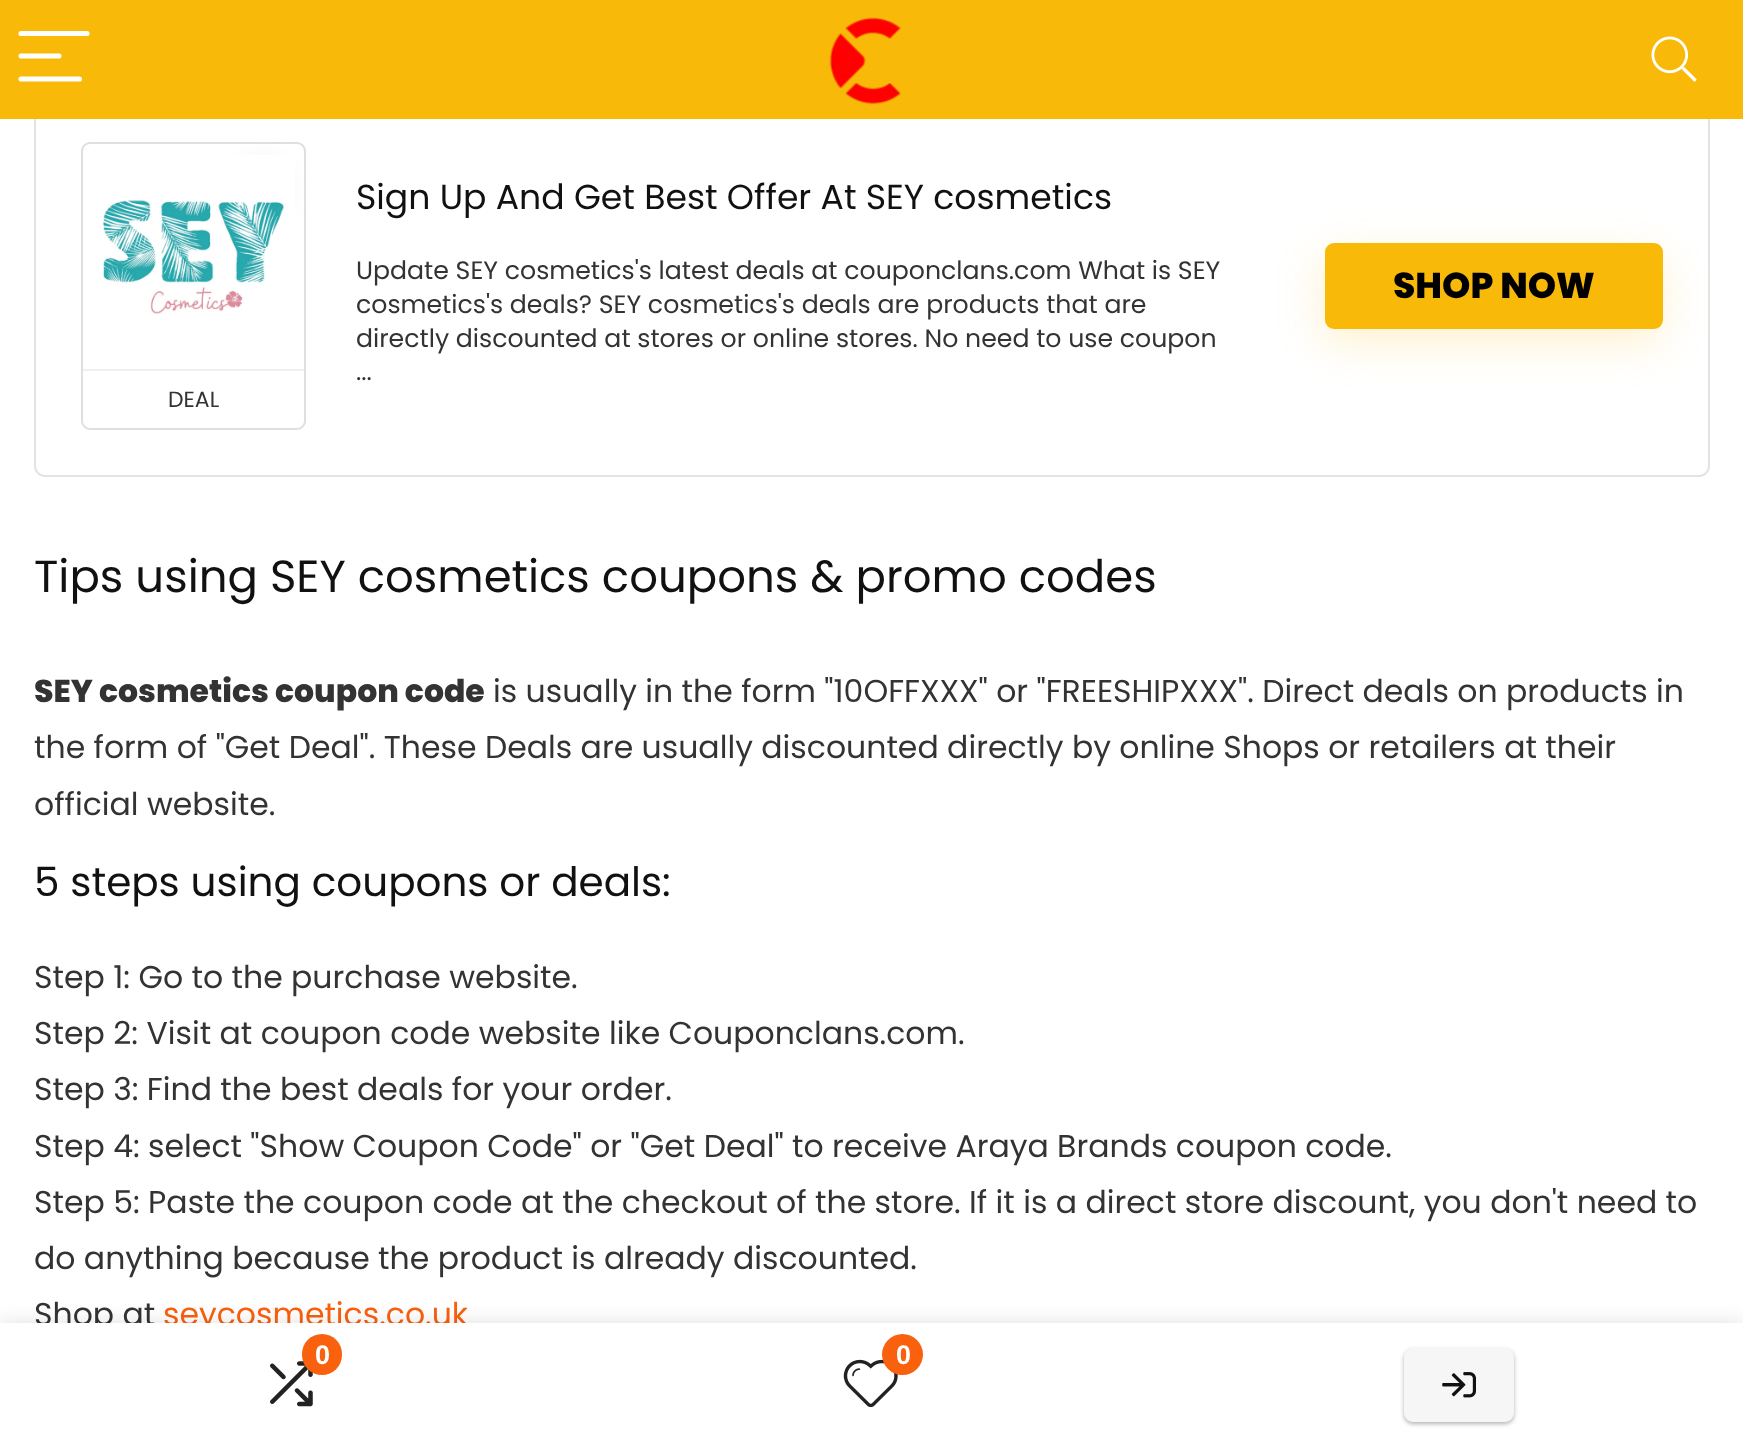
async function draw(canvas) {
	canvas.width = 1743;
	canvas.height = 1446;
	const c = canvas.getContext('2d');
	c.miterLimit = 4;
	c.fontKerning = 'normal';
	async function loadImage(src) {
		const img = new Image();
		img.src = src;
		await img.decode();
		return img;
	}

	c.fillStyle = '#fff';
	c.fillRect(0, 0, 1743, 1446);
	c.beginPath();
	c.roundRect(35, 96, 1674, 380, 10);
	c.strokeStyle = '#e3e3e3';
	c.lineWidth = 2;
	c.stroke();
	c.font = '34.65px Poppins';
	c.fillStyle = '#111';
	c.fillText('Sign Up And Get Best Offer At SEY cosmetics', 356, 209);
	c.font = '25.2px Poppins';
	c.fillStyle = '#333';
	for (const [text, x, y] of [
		['Update SEY cosmetics\'s latest deals at couponclans.com What is SEY', 356, 279],
		['cosmetics\'s deals? SEY cosmetics\'s deals are products that are', 356, 313],
		['directly discounted at stores or online stores. No need to use coupon', 356, 347],
		['...', 356, 380],
	]) {
		c.fillText(text, x, y);
	}
	c.fillStyle = '#f9b90933';
	c.filter = 'blur(21.5px)';
	c.beginPath();
	c.roundRect(1323, 257, 338, 85, 9);
	c.fill();
	c.filter = 'none';
	c.fillStyle = '#f9b909';
	c.beginPath();
	c.roundRect(1325, 243, 338, 86, 9);
	c.fill();
	c.font = '800 36px Poppins';
	c.fillStyle = '#000';
	c.fillText('SHOP NOW', 1393, 298);
	c.beginPath();
	c.roundRect(82, 143, 223, 286, 8);
	c.strokeStyle = '#dce0e0';
	c.stroke();
	c.fillStyle = '#efefef';
	c.filter = 'blur(11px)';
	c.beginPath();
	c.roundRect(234, 160, 56, 56, 28);
	c.fill();
	c.filter = 'none';
	c.drawImage(await loadImage('img1.png'), 103, 155, 192, 159);
	c.fillStyle = '#f0f0f0';
	c.fillRect(83, 369, 221, 2);
	c.font = '22px Poppins';
	c.fillStyle = '#333';
	c.fillText('DEAL', 168, 407);
	c.font = '45px Poppins';
	c.fillStyle = '#111';
	c.fillText('Tips using SEY cosmetics coupons & promo codes', 34, 592);
	c.font = '800 31.5px Poppins';
	c.fillStyle = '#333';
	c.fillText('SEY cosmetics coupon code', 34, 702);
	c.font = '31.5px Poppins';
	for (const [text, x, y] of [
		['is usually in the form "10OFFXXX" or "FREESHIPXXX". Direct deals on products in', 493, 702],
		['the form of "Get Deal". These Deals are usually discounted directly by online Shops or retailers at their', 34, 758],
		['official website.', 34, 815],
	]) {
		c.fillText(text, x, y);
	}
	c.font = '40.5px Poppins';
	c.fillStyle = '#111';
	c.fillText('5 steps using coupons or deals:', 34, 896);
	c.font = '31.5px Poppins';
	c.fillStyle = '#333';
	for (const [text, x, y] of [
		['Step 1: Go to the purchase website.', 34, 988],
		['Step 2: Visit at coupon code website like Couponclans.com.', 34, 1044],
		['Step 3: Find the best deals for your order.', 34, 1100],
		['Step 4: select "Show Coupon Code" or "Get Deal" to receive Araya Brands coupon code.', 34, 1157],
		['Step 5: Paste the coupon code at the checkout of the store. If it is a direct store discount, you don\'t need to', 34, 1213],
		['do anything because the product is already discounted.', 34, 1269],
		['Shop at', 34, 1325],
	]) {
		c.fillText(text, x, y);
	}
	c.fillStyle = '#f9610e';
	c.fillText('seycosmetics.co.uk', 163, 1325);
	c.fillStyle = '#f9b909';
	c.fillRect(0, 0, 1743, 119);
	c.beginPath();
	c.moveTo(21, 33.5);
	c.lineTo(87, 33.5);
	c.strokeStyle = '#fff';
	c.lineWidth = 5.1;
	c.lineCap = 'round';
	c.stroke();
	c.beginPath();
	c.moveTo(21, 56);
	c.lineTo(59, 56);
	c.stroke();
	c.beginPath();
	c.moveTo(21, 79);
	c.lineTo(79.5, 79);
	c.stroke();
	c.drawImage(await loadImage('img2.png'), 829, 17, 72, 88);
	c.drawImage(await loadImage('img3.png'), 1651, 36, 46, 46);
	c.fillStyle = '#0000001f';
	c.filter = 'blur(10px)';
	c.beginPath();
	c.rect(0, 1323, 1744, 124);
	c.fill();
	c.filter = 'none';
	c.fillStyle = '#fff';
	c.fillRect(0, 1323, 1743, 123);
	c.drawImage(await loadImage('img4.png'), 270, 1361, 43, 46);
	c.fillStyle = '#f9610e';
	c.beginPath();
	c.roundRect(302, 1334, 40, 41, 20);
	c.fill();
	c.font = 'bold 27px Liberation Sans';
	c.fillStyle = '#fff';
	c.fillText('0', 315, 1364);
	c.drawImage(await loadImage('img5.png'), 843, 1359, 55, 49);
	c.fillStyle = '#f9610e';
	c.beginPath();
	c.arc(902.5, 1354.5, 20.5, 0, 2 * Math.PI);
	c.fill();
	c.fillStyle = '#fff';
	c.fillText('0', 896, 1364);
	c.fillStyle = '#00000014';
	c.filter = 'blur(2px)';
	c.beginPath();
	c.roundRect(1404, 1350, 110, 74, 9);
	c.fill();
	c.filter = 'none';
	c.fillStyle = '#3c40434d';
	c.filter = 'blur(2px)';
	c.beginPath();
	c.roundRect(1404, 1350, 110, 74, 9);
	c.fill();
	c.filter = 'none';
	c.fillStyle = '#f6f6f6';
	c.beginPath();
	c.roundRect(1404, 1348, 110, 74, 9);
	c.fill();
	c.drawImage(await loadImage('img6.png'), 1442, 1372, 34, 26);
}

draw(document.querySelector('canvas'));
